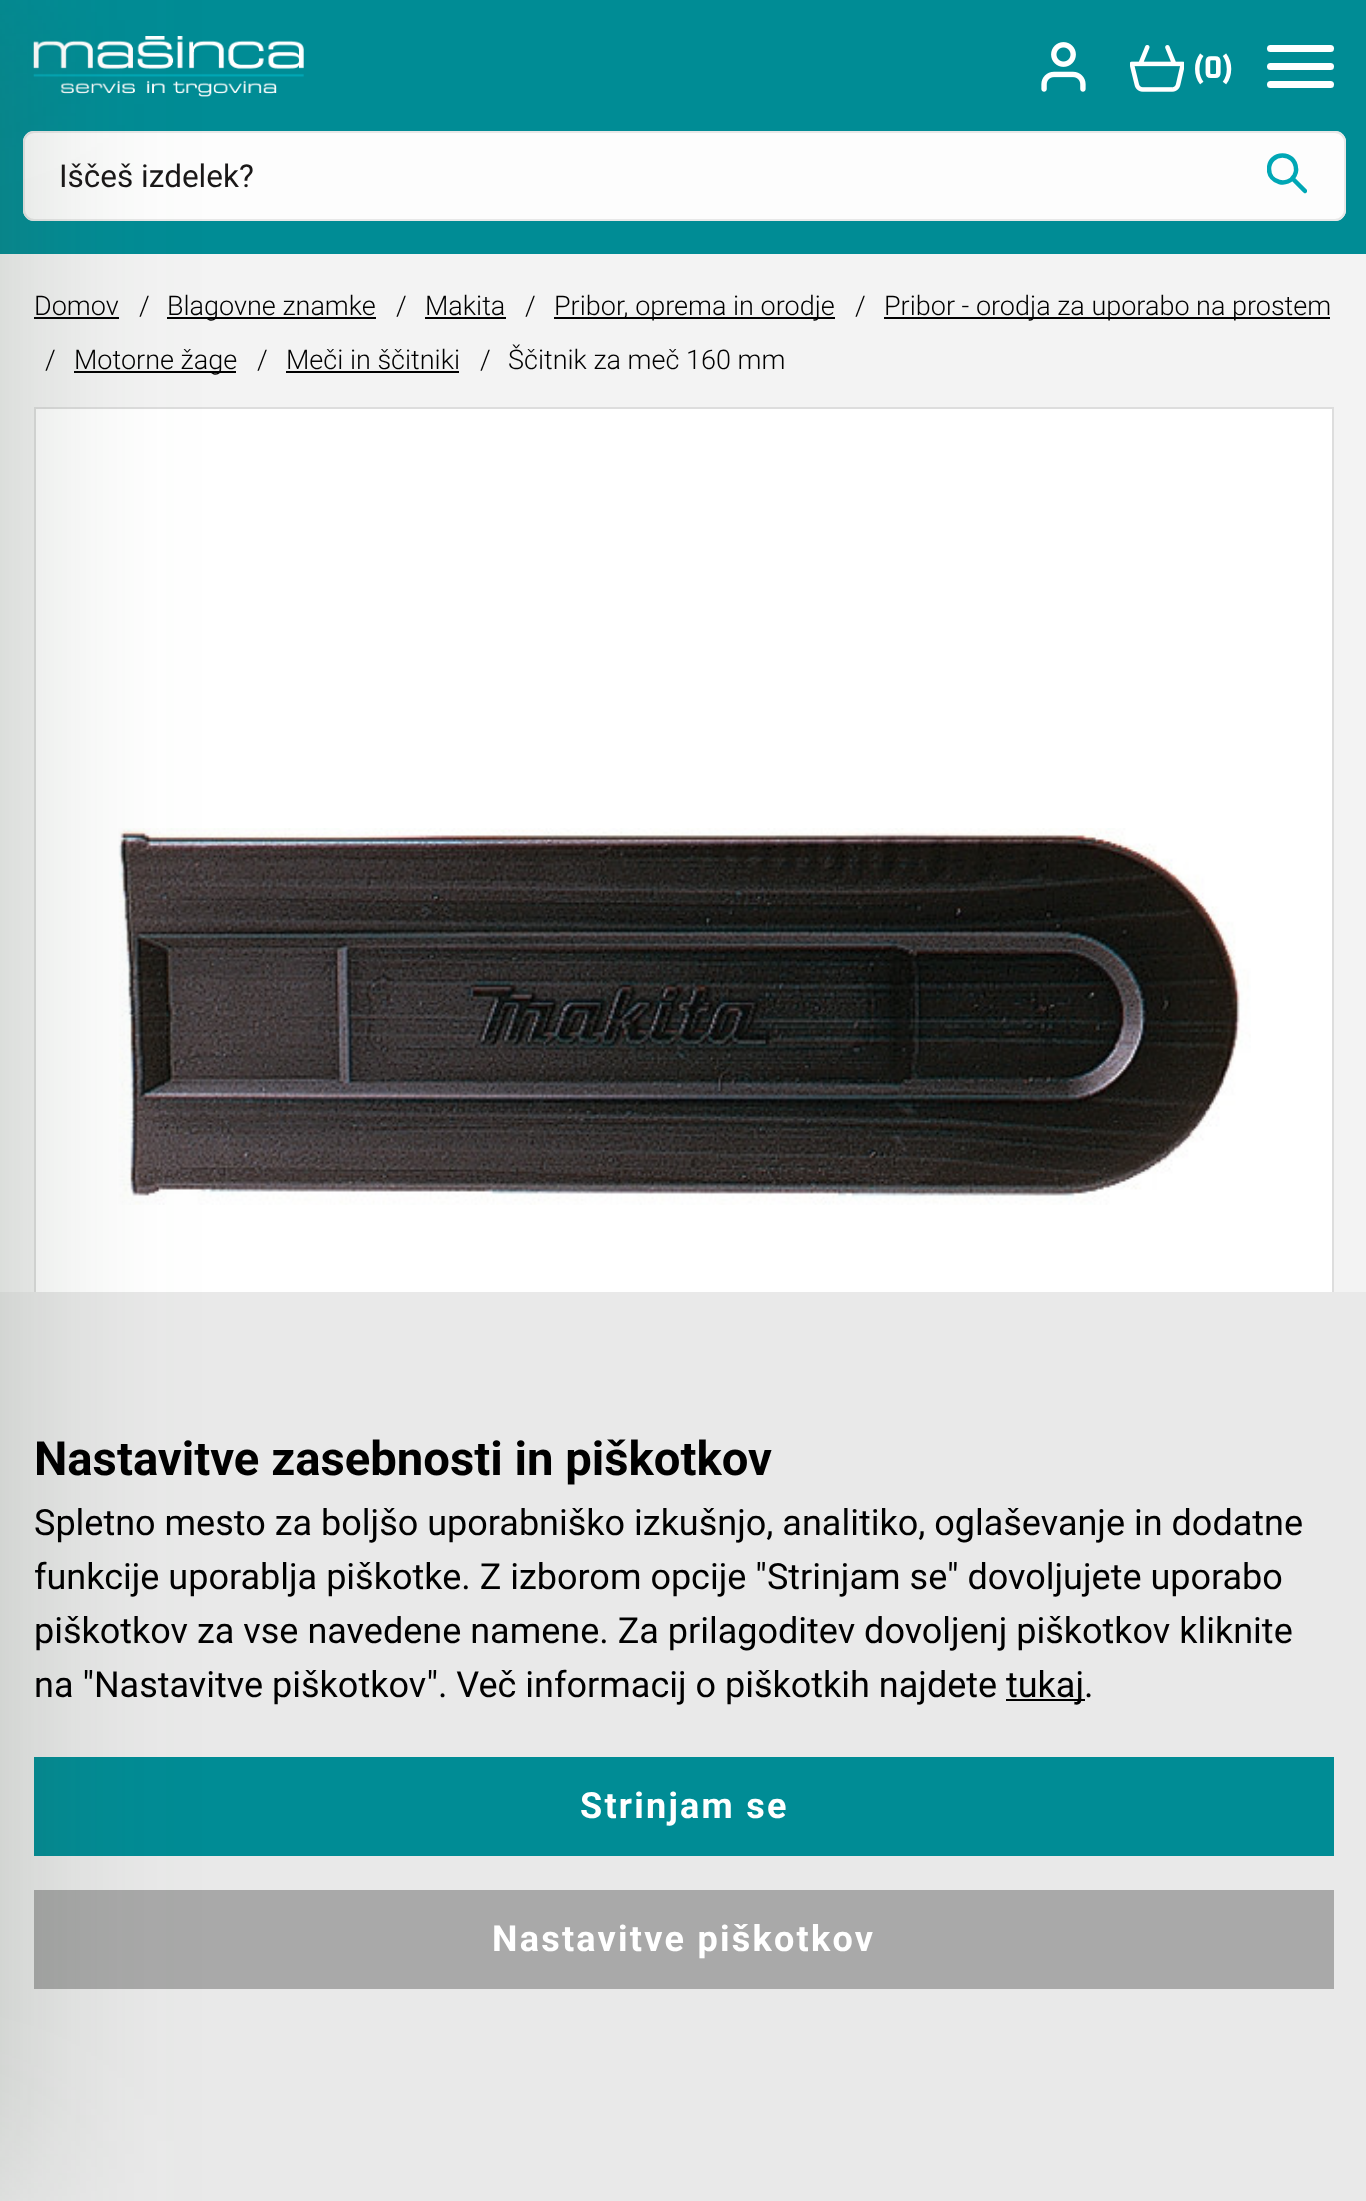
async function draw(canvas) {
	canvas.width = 1366;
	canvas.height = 2201;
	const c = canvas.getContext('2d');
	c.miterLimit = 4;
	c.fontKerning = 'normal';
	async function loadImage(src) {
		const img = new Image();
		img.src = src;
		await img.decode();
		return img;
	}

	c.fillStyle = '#f3f3f3';
	c.fillRect(0, 0, 1366, 2201);
	c.fillStyle = '#008c95';
	c.fillRect(0, 0, 1366, 254);
	c.drawImage(await loadImage('img1.png'), 33, 36, 271, 61);
	c.fillStyle = '#fff';
	c.beginPath();
	c.roundRect(23, 131, 1323, 90, 11);
	c.fill();
	c.fillStyle = '#f1f1f126';
	c.beginPath();
	c.roundRect(24, 132, 1321, 88, 10);
	c.fill();
	c.strokeStyle = '#e8e8e8';
	c.lineWidth = 2;
	c.stroke();
	for (const [x, y, w, h, color] of [
		[34, 317, 85, 2, '#000'],
		[167, 317, 209, 2, '#000'],
		[74, 371, 162, 2, '#000'],
		[36, 409, 1296, 883, '#fff'],
	]) {
		c.fillStyle = color;
		c.fillRect(x, y, w, h);
	}
	c.strokeStyle = '#ddd';
	c.strokeRect(35, 408, 1298, 1146);
	c.drawImage(await loadImage('img4.png'), 118, 828, 1133, 377);
	for (const [x, y, w, h, color] of [
		[0, 1292, 1366, 909, '#e9e9e9'],
		[34, 1757, 1300, 99, '#008c95'],
		[34, 1890, 1300, 99, '#a9a9a9'],
	]) {
		c.fillStyle = color;
		c.fillRect(x, y, w, h);
	}
	c.fillStyle = '#41544342';
	c.filter = 'blur(93.5px)';
	c.beginPath();
	c.rect(-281, 0, 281, 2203);
	c.fill();
	c.filter = 'none';
	c.drawImage(await loadImage('img2.png'), 1041, 42, 45, 50);
	c.drawImage(await loadImage('img3.png'), 1130, 45, 54, 47);
	c.font = 'bold 31.5px Oxanium';
	c.fillStyle = '#fff';
	c.fillText('(0)', 1193, 78);
	c.beginPath();
	c.roundRect(1267, 45, 67, 7, 3.5);
	c.fill();
	c.beginPath();
	c.roundRect(1267, 63, 67, 7, 3.5);
	c.fill();
	c.beginPath();
	c.roundRect(1267, 81, 67, 7, 3.5);
	c.fill();
	c.font = '31.5px Roboto';
	c.fillStyle = '#1a1818';
	c.fillText('Iščeš izdelek?', 59, 187);
	c.save();
	c.beginPath();
	c.rect(1267, 153, 40, 41);
	c.clip();
	c.beginPath();
	c.moveTo(1293.5, 179.5);
	c.lineTo(1305, 191);
	c.closePath();
	c.moveTo(1269, 169);
	c.bezierCurveTo(1269, 151.5, 1295.5, 150.5, 1296, 169);
	c.bezierCurveTo(1296.5, 171, 1295.5, 173.5, 1294.5, 175.5);
	c.bezierCurveTo(1288, 187.5, 1269, 183, 1269, 169);
	c.closePath();
	c.strokeStyle = '#00a7b5';
	c.lineWidth = 4.5;
	c.lineCap = 'round';
	c.lineJoin = 'round';
	c.stroke();
	c.restore();
	c.font = '300 27px Roboto';
	c.fillStyle = '#000';
	for (const [text, x, y] of [
		['Domov', 34, 315],
		['/', 139, 315],
		['Blagovne znamke', 167, 315],
		['/', 396, 315],
		['Makita', 425, 315],
	]) {
		c.fillText(text, x, y);
	}
	c.fillRect(425, 317, 81, 2);
	c.fillText('/', 525, 315);
	c.fillRect(554, 317, 281, 2);
	c.fillText('Pribor, oprema in orodje', 554, 315);
	c.fillText('/', 855, 315);
	c.fillRect(884, 317, 446, 2);
	for (const [text, x, y] of [
		['Pribor - orodja za uporabo na prostem', 884, 315],
		['/', 45, 369],
		['Motorne žage', 74, 369],
		['/', 257, 369],
		['Meči in ščitniki', 286, 369],
	]) {
		c.fillText(text, x, y);
	}
	c.fillRect(286, 371, 173, 2);
	c.fillText('/', 480, 369);
	c.fillText('Ščitnik za meč 160 mm', 508, 369);
	c.font = 'bold 47.25px Roboto';
	c.fillText('Nastavitve zasebnosti in piškotkov', 34, 1475);
	c.font = '36px Roboto';
	for (const [text, x, y] of [
		['Spletno mesto za boljšo uporabniško izkušnjo, analitiko, oglaševanje in dodatne', 34, 1535],
		['funkcije uporablja piškotke. Z izborom opcije "Strinjam se" dovoljujete uporabo', 34, 1589],
		['piškotkov za vse navedene namene. Za prilagoditev dovoljenj piškotkov kliknite', 34, 1643],
		['na "Nastavitve piškotkov". Več informacij o piškotkih najdete', 34, 1697],
	]) {
		c.fillText(text, x, y);
	}
	c.fillRect(1006, 1699, 79, 2);
	c.fillText('tukaj.', 1006, 1697);
	c.letterSpacing = '2.25px';
	c.font = 'bold 36px Roboto';
	c.fillStyle = '#fff';
	c.fillText('Strinjam se', 580, 1818);
	c.fillText('Nastavitve piškotkov', 492, 1951);
}

draw(document.querySelector('canvas'));
